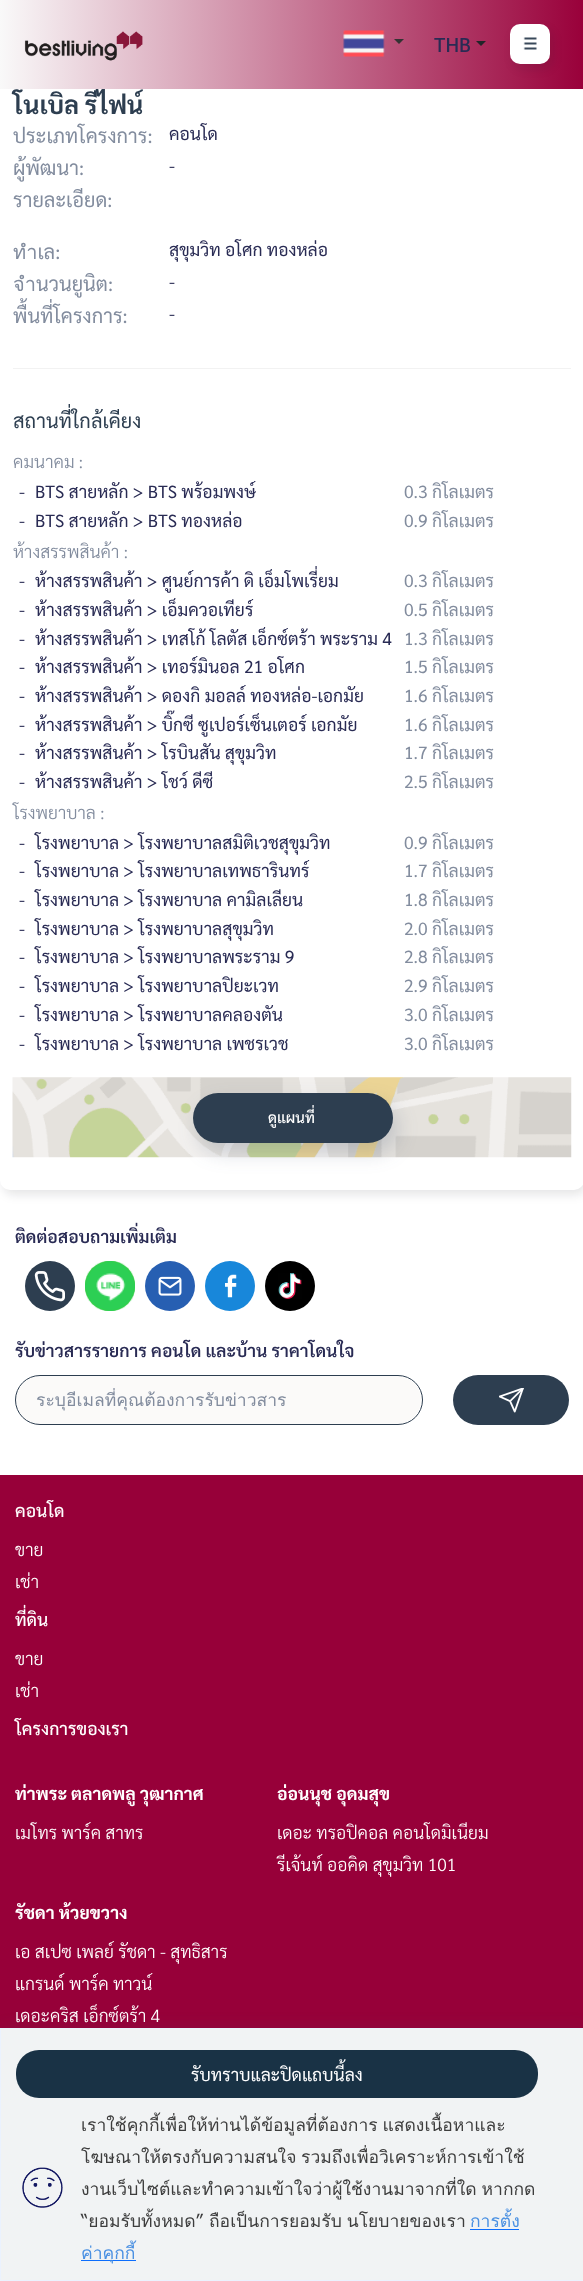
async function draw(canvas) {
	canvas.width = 583;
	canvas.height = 2281;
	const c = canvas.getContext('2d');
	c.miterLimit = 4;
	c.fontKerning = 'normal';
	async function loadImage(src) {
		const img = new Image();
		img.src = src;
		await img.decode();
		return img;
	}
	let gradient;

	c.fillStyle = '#fff';
	c.fillRect(0, 0, 583, 2281);
	c.fillStyle = '#0a0a101a';
	c.filter = 'blur(5px)';
	c.beginPath();
	c.roundRect(3, -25, 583, 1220, 10);
	c.fill();
	c.filter = 'none';
	c.fillStyle = '#fff';
	c.beginPath();
	c.roundRect(0, -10, 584, 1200, 10);
	c.fill();
	c.font = 'bold 25px Sarabun';
	c.fillStyle = '#2d3e50';
	c.fillText('โนเบิล รีไฟน์', 13, 114);
	gradient = c.createLinearGradient(0, 44, 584, 44);
	gradient.addColorStop(0, '#f9f9f9');
	gradient.addColorStop(1, '#99003a');
	c.fillStyle = gradient;
	c.fillRect(0, 0, 583, 89);
	c.drawImage(await loadImage('img1.png'), 24, 31, 119, 30);
	c.drawImage(await loadImage('img2.png'), 343, 30, 42, 27);
	c.fillStyle = '#333';
	c.beginPath();
	c.moveTo(394, 39);
	c.lineTo(404, 39);
	c.lineTo(399, 44);
	c.closePath();
	c.fill();
	c.font = '500 20px Sarabun';
	c.fillStyle = '#292b54';
	c.fillText('THB', 434, 52);
	c.fillStyle = '#212529';
	c.beginPath();
	c.moveTo(476, 41);
	c.lineTo(486, 41);
	c.lineTo(481, 46);
	c.closePath();
	c.fill();
	c.fillStyle = '#0a0a101a';
	c.filter = 'blur(5px)';
	c.beginPath();
	c.roundRect(513, 29, 40, 40, 10);
	c.fill();
	c.filter = 'none';
	c.fillStyle = '#fff';
	c.beginPath();
	c.roundRect(510, 24, 40, 40, 10);
	c.fill();
	c.drawImage(await loadImage('img3.png'), 523, 37, 14, 13);
	c.fillStyle = '#f2f2f2';
	c.fillRect(13, 368, 558, 1);
	c.font = '20px Sarabun';
	c.fillStyle = '#828c9e';
	c.fillText('ประเภทโครงการ:', 13, 143);
	c.font = '17.5px Sarabun';
	c.fillStyle = '#292b54';
	c.fillText('คอนโด', 169, 140);
	c.font = '20px Sarabun';
	c.fillStyle = '#828c9e';
	c.fillText('ผู้พัฒนา:', 13, 175);
	c.font = '17.5px Sarabun';
	c.fillStyle = '#292b54';
	c.fillText('-', 169, 172);
	c.font = '20px Sarabun';
	c.fillStyle = '#828c9e';
	c.fillText('รายละเอียด:', 13, 207);
	c.fillText('ทำเล:', 13, 259);
	c.font = '17.5px Sarabun';
	c.fillStyle = '#292b54';
	c.fillText('สุขุมวิท อโศก ทองหล่อ', 169, 256);
	c.font = '20px Sarabun';
	c.fillStyle = '#828c9e';
	c.fillText('จำนวนยูนิต:', 13, 291);
	c.font = '17.5px Sarabun';
	c.fillStyle = '#292b54';
	c.fillText('-', 169, 288);
	c.font = '20px Sarabun';
	c.fillStyle = '#828c9e';
	c.fillText('พื้นที่โครงการ:', 13, 323);
	c.font = '17.5px Sarabun';
	c.fillStyle = '#292b54';
	c.fillText('-', 169, 320);
	c.font = '20px Sarabun';
	c.fillStyle = '#2d3e50';
	c.fillText('สถานที่ใกล้เคียง', 13, 428);
	c.font = '300 17.5px Sarabun';
	c.fillStyle = '#828c9e';
	c.fillText('คมนาคม :', 13, 468);
	c.font = '17.5px Sarabun';
	c.fillStyle = '#292b54';
	c.fillText('-', 19, 498);
	c.fillText('BTS สายหลัก > BTS พร้อมพงษ์', 35, 498);
	c.fillStyle = '#828c9e';
	c.fillText('0.3 กิโลเมตร', 404, 498);
	c.fillStyle = '#292b54';
	c.fillText('-', 19, 527);
	c.fillText('BTS สายหลัก > BTS ทองหล่อ', 35, 527);
	c.fillStyle = '#828c9e';
	c.fillText('0.9 กิโลเมตร', 404, 527);
	c.font = '300 17.5px Sarabun';
	c.fillText('ห้างสรรพสินค้า :', 13, 558);
	c.font = '17.5px Sarabun';
	c.fillStyle = '#292b54';
	c.fillText('-', 19, 587);
	c.fillText('ห้างสรรพสินค้า > ศูนย์การค้า ดิ เอ็มโพเรี่ยม', 35, 587);
	c.fillStyle = '#828c9e';
	c.fillText('0.3 กิโลเมตร', 404, 587);
	c.fillStyle = '#292b54';
	c.fillText('-', 19, 616);
	c.fillText('ห้างสรรพสินค้า > เอ็มควอเทียร์', 35, 616);
	c.fillStyle = '#828c9e';
	c.fillText('0.5 กิโลเมตร', 404, 616);
	c.fillStyle = '#292b54';
	c.fillText('-', 19, 645);
	c.fillText('ห้างสรรพสินค้า > เทสโก้ โลตัส เอ็กซ์ตร้า พระราม 4', 35, 645);
	c.fillStyle = '#828c9e';
	c.fillText('1.3 กิโลเมตร', 404, 645);
	c.fillStyle = '#292b54';
	c.fillText('-', 19, 673);
	c.fillText('ห้างสรรพสินค้า > เทอร์มินอล 21 อโศก', 35, 673);
	c.fillStyle = '#828c9e';
	c.fillText('1.5 กิโลเมตร', 404, 673);
	c.fillStyle = '#292b54';
	c.fillText('-', 19, 702);
	c.fillText('ห้างสรรพสินค้า > ดองกิ มอลล์ ทองหล่อ-เอกมัย', 35, 702);
	c.fillStyle = '#828c9e';
	c.fillText('1.6 กิโลเมตร', 404, 702);
	c.fillStyle = '#292b54';
	c.fillText('-', 19, 731);
	c.fillText('ห้างสรรพสินค้า > บิ๊กซี ซูเปอร์เซ็นเตอร์ เอกมัย', 35, 731);
	c.fillStyle = '#828c9e';
	c.fillText('1.6 กิโลเมตร', 404, 731);
	c.fillStyle = '#292b54';
	c.fillText('-', 19, 759);
	c.fillText('ห้างสรรพสินค้า > โรบินสัน สุขุมวิท', 35, 759);
	c.fillStyle = '#828c9e';
	c.fillText('1.7 กิโลเมตร', 404, 759);
	c.fillStyle = '#292b54';
	c.fillText('-', 19, 788);
	c.fillText('ห้างสรรพสินค้า > โชว์ ดีซี', 35, 788);
	c.fillStyle = '#828c9e';
	c.fillText('2.5 กิโลเมตร', 404, 788);
	c.font = '300 17.5px Sarabun';
	c.fillText('โรงพยาบาล :', 13, 819);
	c.font = '17.5px Sarabun';
	c.fillStyle = '#292b54';
	c.fillText('-', 19, 849);
	c.fillText('โรงพยาบาล > โรงพยาบาลสมิติเวชสุขุมวิท', 35, 849);
	c.fillStyle = '#828c9e';
	c.fillText('0.9 กิโลเมตร', 404, 849);
	c.fillStyle = '#292b54';
	c.fillText('-', 19, 877);
	c.fillText('โรงพยาบาล > โรงพยาบาลเทพธารินทร์', 35, 877);
	c.fillStyle = '#828c9e';
	c.fillText('1.7 กิโลเมตร', 404, 877);
	c.fillStyle = '#292b54';
	c.fillText('-', 19, 906);
	c.fillText('โรงพยาบาล > โรงพยาบาล คามิลเลียน', 35, 906);
	c.fillStyle = '#828c9e';
	c.fillText('1.8 กิโลเมตร', 404, 906);
	c.fillStyle = '#292b54';
	c.fillText('-', 19, 935);
	c.fillText('โรงพยาบาล > โรงพยาบาลสุขุมวิท', 35, 935);
	c.fillStyle = '#828c9e';
	c.fillText('2.0 กิโลเมตร', 404, 935);
	c.fillStyle = '#292b54';
	c.fillText('-', 19, 963);
	c.fillText('โรงพยาบาล > โรงพยาบาลพระราม 9', 35, 963);
	c.fillStyle = '#828c9e';
	c.fillText('2.8 กิโลเมตร', 404, 963);
	c.fillStyle = '#292b54';
	c.fillText('-', 19, 992);
	c.fillText('โรงพยาบาล > โรงพยาบาลปิยะเวท', 35, 992);
	c.fillStyle = '#828c9e';
	c.fillText('2.9 กิโลเมตร', 404, 992);
	c.fillStyle = '#292b54';
	c.fillText('-', 19, 1021);
	c.fillText('โรงพยาบาล > โรงพยาบาลคลองตัน', 35, 1021);
	c.fillStyle = '#828c9e';
	c.fillText('3.0 กิโลเมตร', 404, 1021);
	c.fillStyle = '#292b54';
	c.fillText('-', 19, 1050);
	c.fillText('โรงพยาบาล > โรงพยาบาล เพชรเวช', 35, 1050);
	c.fillStyle = '#828c9e';
	c.fillText('3.0 กิโลเมตร', 404, 1050);
	c.drawImage(await loadImage('img4.png'), 12, 1077, 560, 81);
	c.fillStyle = '#384b6c33';
	c.filter = 'blur(10px)';
	c.beginPath();
	c.roundRect(198, 1103, 200, 50, 25);
	c.fill();
	c.filter = 'none';
	c.fillStyle = '#2d3e50';
	c.beginPath();
	c.roundRect(193, 1093, 200, 50, 25);
	c.fill();
	c.font = '500 15px Sarabun';
	c.fillStyle = '#fff';
	c.fillText('ดูแผนที่', 268, 1123);
	c.font = '600 17.5px Sarabun';
	c.fillStyle = '#292b54';
	c.fillText('ติดต่อสอบถามเพิ่มเติม', 15, 1243);
	c.fillStyle = '#2d3e50';
	c.beginPath();
	c.arc(50, 1286, 25, 0, 2 * Math.PI);
	c.fill();
	c.drawImage(await loadImage('img5.png'), 34, 1271, 31, 31);
	c.fillStyle = '#4cca20';
	c.beginPath();
	c.arc(110, 1286, 25, 0, 2 * Math.PI);
	c.fill();
	c.drawImage(await loadImage('img6.png'), 85, 1261, 50, 50);
	c.fillStyle = '#275fb2';
	c.beginPath();
	c.arc(170, 1286, 25, 0, 2 * Math.PI);
	c.fill();
	c.drawImage(await loadImage('img7.png'), 158, 1276, 24, 20);
	c.fillStyle = '#1887da';
	c.beginPath();
	c.arc(230, 1286, 25, 0, 2 * Math.PI);
	c.fill();
	c.drawImage(await loadImage('img8.png'), 225, 1274, 12, 24);
	c.fillStyle = '#000';
	c.beginPath();
	c.arc(290, 1286, 25, 0, 2 * Math.PI);
	c.fill();
	c.drawImage(await loadImage('img9.png'), 278, 1273, 24, 26);
	c.fillStyle = '#292b54';
	c.fillText('รับข่าวสารรายการ คอนโด และบ้าน ราคาโดนใจ', 15, 1357);
	c.fillStyle = '#fbfaf9';
	c.beginPath();
	c.roundRect(16, 1376, 405, 48, 24);
	c.fill();
	c.beginPath();
	c.roundRect(15.5, 1375.5, 407, 49, 24.5);
	c.strokeStyle = '#2d3e50';
	c.stroke();
	c.font = '17.5px Loma';
	c.fillStyle = '#828c9e';
	c.fillText('ระบุอีเมลที่คุณต้องการรับข่าวสาร', 36, 1406);
	c.fillStyle = '#2d3e50';
	c.beginPath();
	c.roundRect(453, 1375, 116, 50, 25);
	c.fill();
	c.drawImage(await loadImage('img10.png'), 499, 1388, 25, 25);
	c.fillStyle = '#970039';
	c.fillRect(0, 1475, 583, 553);
	c.font = '500 17.5px Sarabun';
	c.fillStyle = '#fff';
	c.fillText('คอนโด', 15, 1517);
	c.font = '300 17.5px Sarabun';
	c.fillText('ขาย', 15, 1556);
	c.fillText('เช่า', 15, 1588);
	c.font = '500 17.5px Sarabun';
	c.fillText('ที่ดิน', 15, 1626);
	c.font = '300 17.5px Sarabun';
	c.fillText('ขาย', 15, 1665);
	c.fillText('เช่า', 15, 1697);
	c.font = '500 17.5px Sarabun';
	c.fillText('โครงการของเรา', 15, 1735);
	c.font = 'bold 17.5px Sarabun';
	c.fillText('ท่าพระ ตลาดพลู วุฒากาศ', 15, 1800);
	c.font = '300 17.5px Sarabun';
	c.fillText('เมโทร พาร์ค สาทร', 15, 1839);
	c.font = 'bold 17.5px Sarabun';
	c.fillText('อ่อนนุช อุดมสุข', 277, 1800);
	c.font = '300 17.5px Sarabun';
	c.fillText('เดอะ ทรอปิคอล คอนโดมิเนียม', 277, 1839);
	c.fillText('รีเจ้นท์ ออคิด สุขุมวิท 101', 277, 1871);
	c.font = 'bold 17.5px Sarabun';
	c.fillText('รัชดา ห้วยขวาง', 15, 1919);
	c.font = '300 17.5px Sarabun';
	for (const [text, x, y] of [
		['เอ สเปซ เพลย์ รัชดา - สุทธิสาร', 15, 1958],
		['แกรนด์ พาร์ค ทาวน์', 15, 1990],
		['เดอะคริส เอ็กซ์ตร้า 4', 15, 2022],
	]) {
		c.fillText(text, x, y);
	}
	c.fillStyle = '#384b6c33';
	c.filter = 'blur(10px)';
	c.beginPath();
	c.rect(3, 2033, 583, 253);
	c.fill();
	c.filter = 'none';
	c.fillStyle = '#f1f3f4';
	c.beginPath();
	c.rect(0.5, 2028.5, 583, 252);
	c.fill();
	c.strokeStyle = '#ebf2fe';
	c.stroke();
	c.fillStyle = '#193245';
	c.beginPath();
	c.roundRect(16, 2050, 522, 48, 23);
	c.fill();
	c.font = '17.5px Sarabun';
	c.fillStyle = '#fff';
	c.fillText('รับทราบและปิดแถบนี้ลง', 191, 2081);
	c.drawImage(await loadImage('img11.png'), 22, 2167, 41, 41);
	c.wordSpacing = '-1px';
	c.font = '17.5px Loma';
	c.fillStyle = '#3d3d3d';
	c.fillText('เราใช้คุกกี้เพื่อให้ท่านได้ข้อมูลที่ต้องการ แสดงเนื้อหาและ', 81, 2131);
	c.wordSpacing = '0px';
	c.fillText('โฆษณาให้ตรงกับความสนใจ', 81, 2163);
	c.fillText('รวมถึงเพื่อวิเคราะห์การเข้าใช้', 301, 2163);
	c.wordSpacing = '-1px';
	c.fillText('งานเว็บไซต์และทำความเข้าใจว่าผู้ใช้งานมาจากที่ใด หากกด', 81, 2195);
	c.fillText('“ยอมรับทั้งหมด” ถือเป็นการยอมรับ นโยบายของเรา', 81, 2227);
	c.wordSpacing = '0px';
	c.fillStyle = '#4a90e2';
	c.fillText('การตั้ง', 470, 2227);
	c.fillStyle = '#0d6efd';
	c.fillRect(470, 2229, 49, 1);
	c.fillRect(81, 2260, 55, 1);
	c.fillStyle = '#4a90e2';
	c.fillText('ค่าคุกกี้', 81, 2259);
}

draw(document.querySelector('canvas'));
